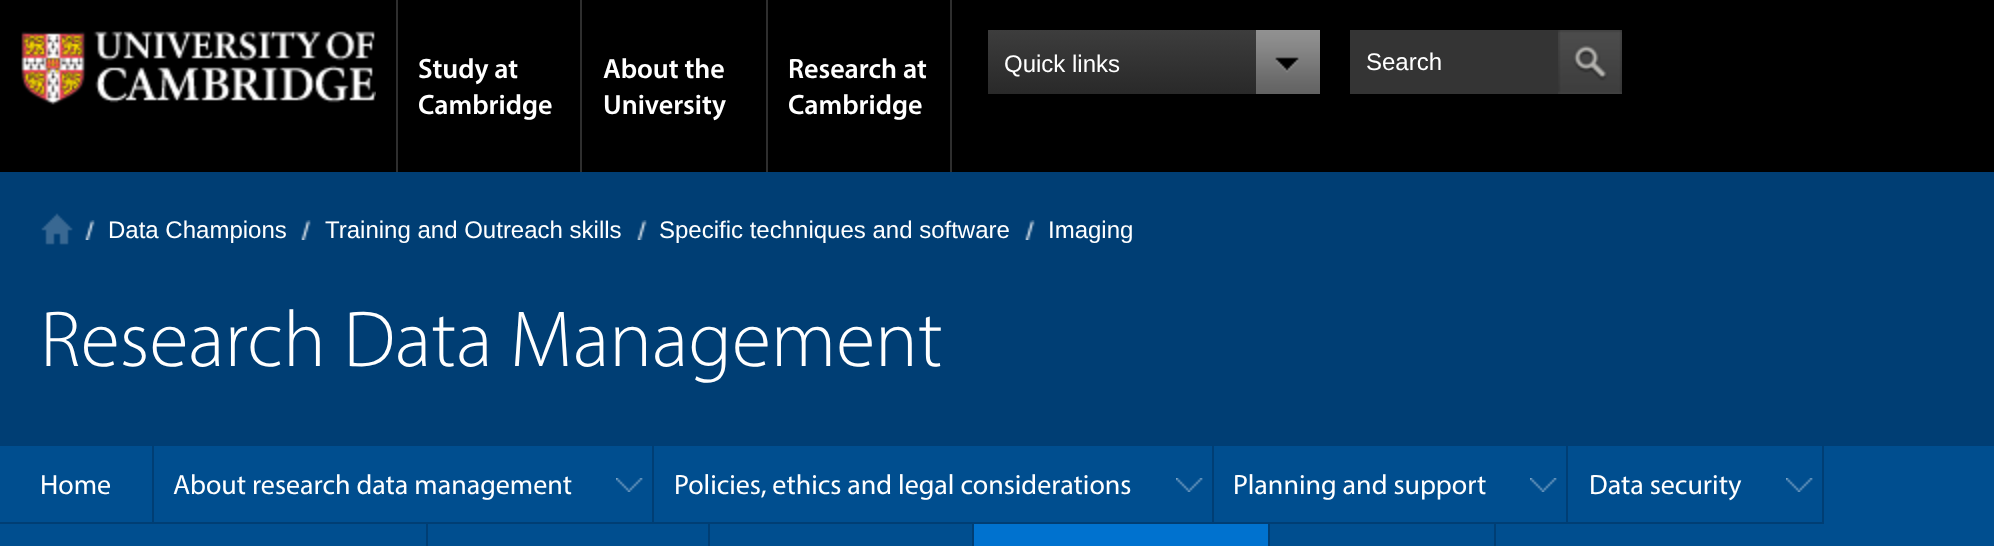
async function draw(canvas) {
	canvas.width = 1994;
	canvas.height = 546;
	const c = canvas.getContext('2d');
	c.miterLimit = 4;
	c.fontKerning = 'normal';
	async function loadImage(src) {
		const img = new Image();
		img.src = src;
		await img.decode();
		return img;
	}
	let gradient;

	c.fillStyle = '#000';
	c.fillRect(0, 0, 1994, 546);
	c.drawImage(await loadImage('img1.png'), 21, 31, 355, 74);
	c.fillStyle = '#2e2e2e';
	c.fillRect(396, 0, 2, 172);
	c.fillRect(580, 0, 2, 172);
	c.font = '600 28px Myriad';
	c.fillStyle = '#fff';
	c.fillText('Study at', 418, 78);
	c.fillText('Cambridge', 418, 114);
	c.fillStyle = '#2e2e2e';
	c.fillRect(766, 0, 2, 172);
	c.fillStyle = '#fff';
	c.fillText('About the', 603, 78);
	c.fillText('University', 603, 114);
	c.fillStyle = '#2e2e2e';
	c.fillRect(950, 0, 2, 172);
	c.fillStyle = '#fff';
	c.fillText('Research at', 788, 78);
	c.fillText('Cambridge', 788, 114);
	gradient = c.createLinearGradient(1154, 30, 1154, 94);
	gradient.addColorStop(0, '#3d3d3d');
	gradient.addColorStop(1, '#292929');
	c.fillStyle = gradient;
	c.fillRect(988, 30, 268, 64);
	c.font = '24px Liberation Sans';
	c.fillStyle = '#fff';
	c.fillText('Quick links', 1004, 72);
	c.drawImage(await loadImage('img2.png'), 1256, 30, 64, 64);
	c.fillStyle = '#343434';
	c.fillRect(1350, 30, 208, 64);
	c.fillStyle = '#fff';
	c.fillText('Search', 1366, 70);
	c.drawImage(await loadImage('img3.png'), 1558, 30, 64, 64);
	c.fillStyle = '#003e74';
	c.fillRect(0, 172, 1994, 272);
	c.drawImage(await loadImage('img4.png'), 41, 213, 32, 32);
	c.drawImage(await loadImage('img5.png'), 85, 220, 10, 20);
	c.fillStyle = '#fff';
	c.fillText('Data Champions', 108, 238);
	c.drawImage(await loadImage('img5.png'), 301, 220, 10, 20);
	c.fillText('Training and Outreach skills', 325, 238);
	c.drawImage(await loadImage('img5.png'), 637, 220, 10, 20);
	c.fillText('Specific techniques and software', 659, 238);
	c.drawImage(await loadImage('img5.png'), 1025, 220, 10, 20);
	c.fillText('Imaging', 1048, 238);
	c.font = '300 80px Myriad';
	c.fillText('Research Data Management', 40, 366);
	for (const [x, y, w, h, color] of [
		[1496, 446, 498, 100, '#004e8f'],
		[1824, 444, 170, 2, '#003e74'],
		[0, 446, 152, 76, '#004e8f'],
		[0, 444, 1824, 2, '#003e74'],
		[152, 444, 2, 80, '#003e74'],
	]) {
		c.fillStyle = color;
		c.fillRect(x, y, w, h);
	}
	c.font = '28px Myriad';
	c.fillStyle = '#fff';
	c.fillText('Home', 40, 494);
	c.fillStyle = '#004e8f';
	c.fillRect(154, 446, 498, 76);
	c.drawImage(await loadImage('img6.png'), 616, 478, 27, 14);
	c.fillStyle = '#003e74';
	c.fillRect(652, 444, 2, 80);
	c.fillStyle = '#fff';
	c.fillText('About research data management', 173, 494);
	c.fillStyle = '#004e8f';
	c.fillRect(654, 446, 558, 76);
	c.drawImage(await loadImage('img6.png'), 1176, 478, 27, 14);
	c.fillStyle = '#003e74';
	c.fillRect(1212, 444, 2, 80);
	c.fillStyle = '#fff';
	c.fillText('Policies, ethics and legal considerations', 674, 494);
	c.fillStyle = '#004e8f';
	c.fillRect(1214, 446, 282, 76);
	c.drawImage(await loadImage('img6.png'), 1530, 478, 27, 14);
	c.fillStyle = '#003e74';
	c.fillRect(1566, 444, 2, 80);
	c.fillRect(1496, 522, 72, 2);
	c.fillStyle = '#fff';
	c.fillText('Planning and support', 1233, 494);
	c.drawImage(await loadImage('img6.png'), 1786, 478, 27, 14);
	c.fillStyle = '#003e74';
	c.fillRect(1822, 444, 2, 80);
	c.fillRect(1568, 522, 256, 2);
	c.fillStyle = '#fff';
	c.fillText('Data security', 1589, 494);
	for (const [x, y, w, h, color] of [
		[0, 524, 426, 22, '#004e8f'],
		[0, 522, 1496, 2, '#003e74'],
		[426, 522, 2, 24, '#003e74'],
		[428, 524, 280, 22, '#004e8f'],
		[708, 522, 2, 24, '#003e74'],
		[710, 524, 262, 22, '#004e8f'],
		[972, 522, 2, 24, '#003e74'],
		[974, 524, 294, 22, '#0072cf'],
		[1268, 522, 2, 24, '#003e74'],
		[1270, 524, 224, 22, '#004e8f'],
		[1494, 522, 2, 24, '#003e74'],
	]) {
		c.fillStyle = color;
		c.fillRect(x, y, w, h);
	}
}

draw(document.querySelector('canvas'));
